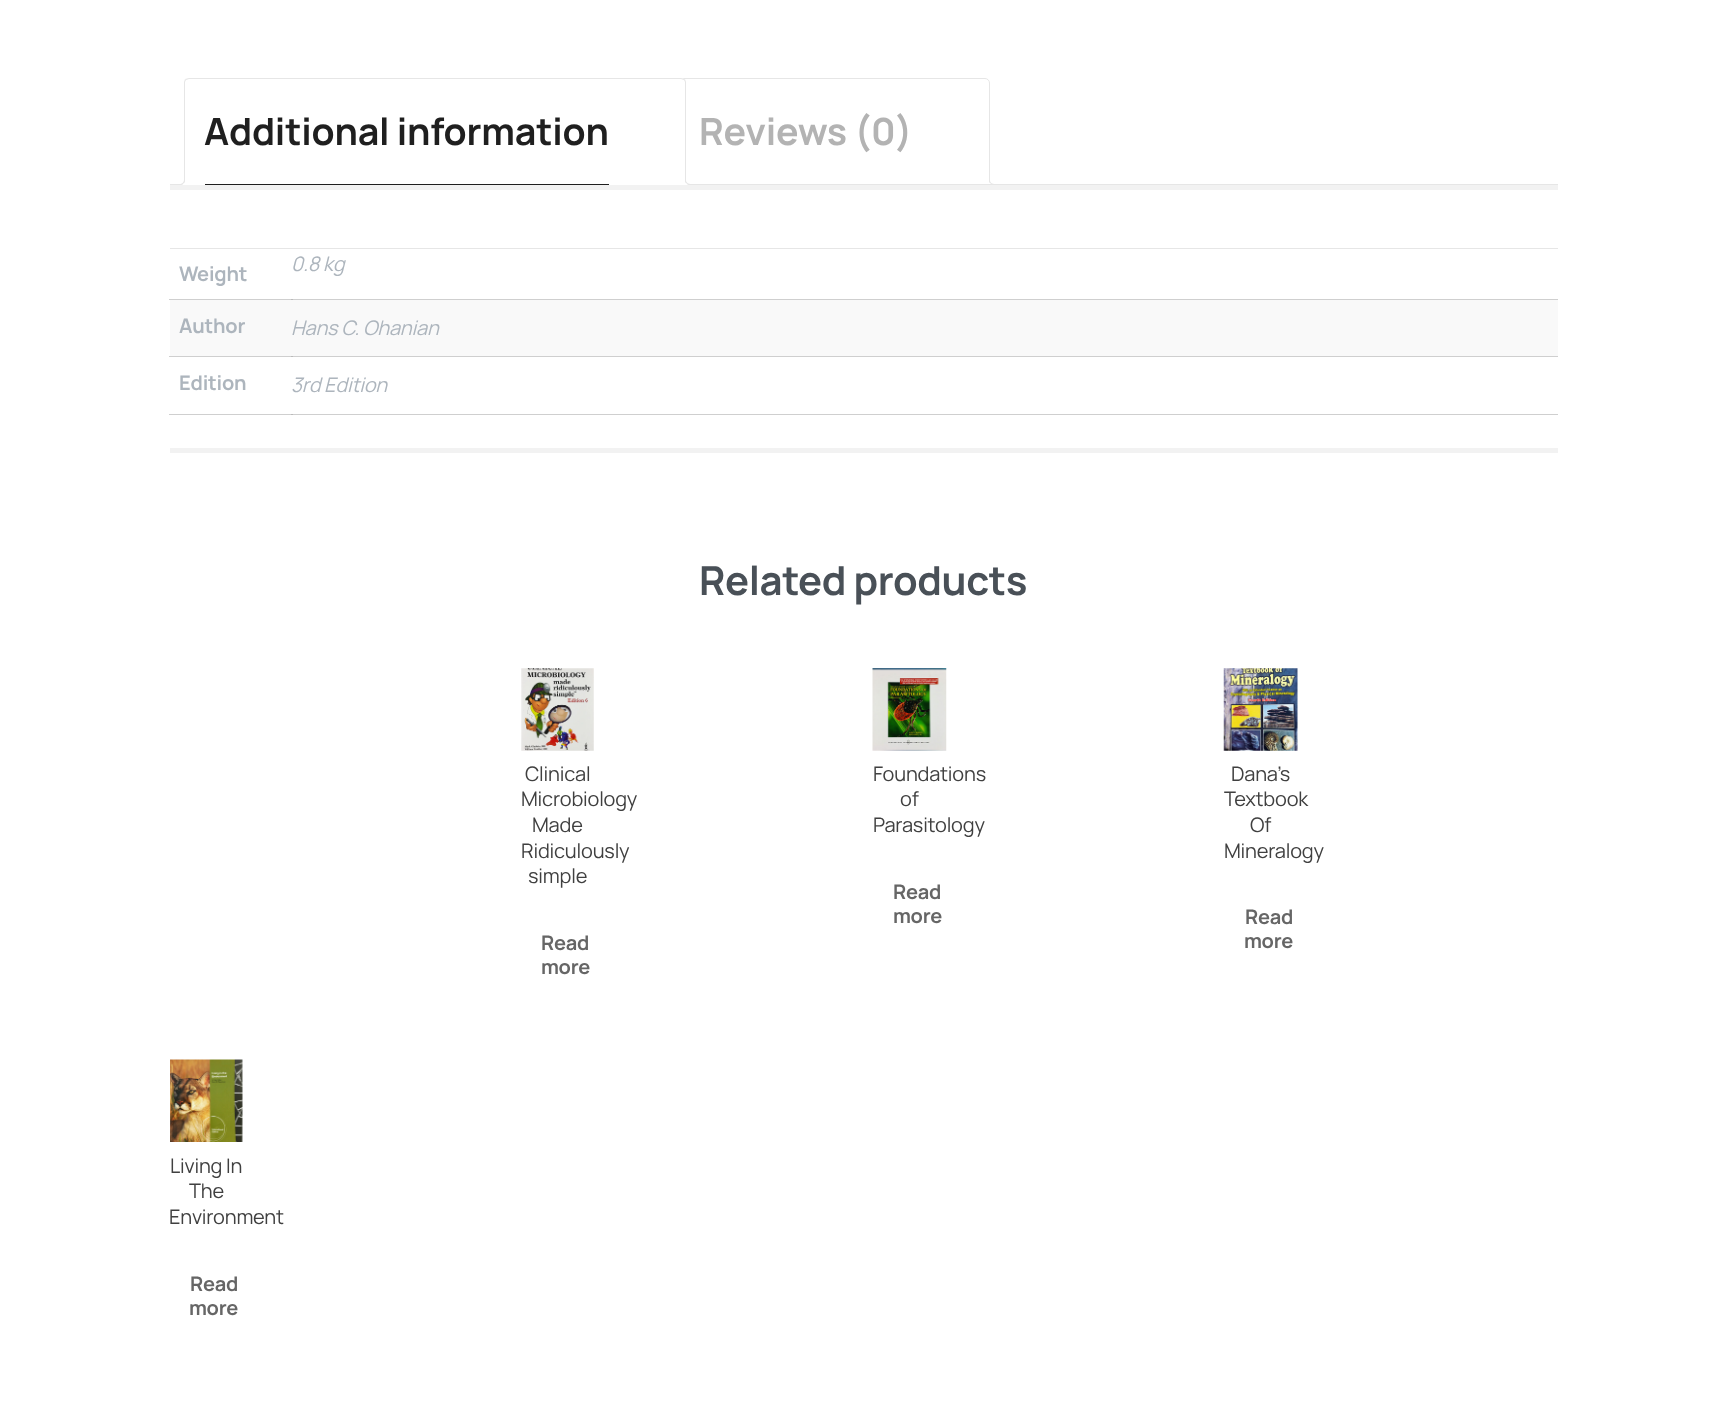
async function draw(canvas) {
	canvas.width = 1726;
	canvas.height = 1415;
	const c = canvas.getContext('2d');
	c.miterLimit = 4;
	c.fontKerning = 'normal';
	async function loadImage(src) {
		const img = new Image();
		img.src = src;
		await img.decode();
		return img;
	}

	c.fillStyle = '#fff';
	c.fillRect(0, 0, 1726, 1415);
	c.fillStyle = '#f2f2f2';
	c.fillRect(170, 185, 1388, 5);
	c.beginPath();
	c.roundRect(678.5, 78.5, 311, 106, [4.5, 4.5, 0, 0]);
	c.strokeStyle = '#e6e6e6';
	c.stroke();
	c.save();
	c.beginPath();
	c.rect(170, 78, 1388, 107);
	c.clip();
	c.fillStyle = '#fff';
	c.beginPath();
	c.moveTo(986, 181);
	c.bezierCurveTo(986, 186.5, 987.5, 188, 993, 188);
	c.lineTo(993, 185);
	c.bezierCurveTo(991, 184.5, 989.5, 183, 989, 181);
	c.closePath();
	c.fill();
	c.restore();
	c.fillStyle = '#e6e6e6';
	c.beginPath();
	c.moveTo(989, 179);
	c.lineTo(995, 179);
	c.lineTo(995, 185);
	c.bezierCurveTo(992, 185, 989, 183.5, 989, 180);
	c.closePath();
	c.moveTo(990, 179);
	c.lineTo(995, 179);
	c.lineTo(995, 184);
	c.bezierCurveTo(992.5, 184, 990, 183, 990, 180);
	c.closePath();
	c.fill('evenodd');
	c.fillRect(170, 184, 1388, 1);
	c.fillStyle = '#fff';
	c.beginPath();
	c.roundRect(184, 78, 502, 107, [5, 5, 0, 0]);
	c.fill();
	c.fillStyle = '#e6e6e6';
	c.beginPath();
	c.moveTo(189, 78);
	c.lineTo(185, 79);
	c.lineTo(186, 80);
	c.lineTo(189, 79);
	c.lineTo(681, 79);
	c.lineTo(684, 80);
	c.lineTo(685, 79);
	c.lineTo(681, 78);
	c.closePath();
	c.fill();
	c.beginPath();
	c.moveTo(686, 185);
	c.lineTo(686, 82);
	c.lineTo(685, 79);
	c.lineTo(684, 80);
	c.lineTo(685, 82);
	c.lineTo(685, 184);
	c.closePath();
	c.fill();
	c.fillStyle = '#fff';
	c.beginPath();
	c.moveTo(184, 185);
	c.lineTo(686, 185);
	c.lineTo(685, 184);
	c.lineTo(185, 184);
	c.closePath();
	c.fill();
	c.fillStyle = '#e6e6e6';
	c.beginPath();
	c.moveTo(185, 79);
	c.lineTo(184, 82);
	c.lineTo(184, 185);
	c.lineTo(185, 184);
	c.lineTo(185, 82);
	c.lineTo(186, 80);
	c.closePath();
	c.fill();
	c.fillStyle = '#1f1f1f';
	c.fillRect(205, 184, 404, 1);
	c.letterSpacing = '-0.2px';
	c.font = 'bold 37.5px Manrope';
	c.fillText('Additional information', 204, 145);
	c.save();
	c.beginPath();
	c.rect(170, 78, 1388, 107);
	c.clip();
	c.fillStyle = '#fff';
	c.beginPath();
	c.moveTo(181, 185);
	c.lineTo(181, 188);
	c.bezierCurveTo(186.5, 188, 188, 186.5, 188, 181);
	c.lineTo(185, 181);
	c.bezierCurveTo(184.5, 183, 183, 184.5, 181, 185);
	c.closePath();
	c.fill();
	c.restore();
	c.fillStyle = '#e6e6e6';
	c.beginPath();
	c.moveTo(179, 179);
	c.lineTo(185, 179);
	c.bezierCurveTo(185, 183, 183, 185, 179, 185);
	c.closePath();
	c.moveTo(179, 179);
	c.lineTo(184, 179);
	c.bezierCurveTo(184, 182.5, 182.5, 184, 179, 184);
	c.closePath();
	c.fill('evenodd');
	c.save();
	c.beginPath();
	c.rect(170, 78, 1388, 107);
	c.clip();
	c.fillStyle = '#fff';
	c.beginPath();
	c.moveTo(683, 181);
	c.bezierCurveTo(683, 185.5, 684, 188, 689, 188);
	c.lineTo(689, 185);
	c.bezierCurveTo(687, 184.5, 685.5, 183, 685, 181);
	c.closePath();
	c.fill();
	c.restore();
	c.beginPath();
	c.moveTo(685, 179);
	c.lineTo(691, 179);
	c.lineTo(691, 185);
	c.bezierCurveTo(688, 185, 685, 183.5, 685, 180);
	c.closePath();
	c.moveTo(686, 179);
	c.lineTo(691, 179);
	c.lineTo(691, 184);
	c.bezierCurveTo(689, 184, 686, 183, 686, 180);
	c.closePath();
	c.fill('evenodd');
	c.fillStyle = '#b3b3b3';
	c.fillText('Reviews (0)', 699, 145);
	for (const [x, y, w, h, color] of [
		[170, 448, 1388, 5, '#f2f2f2'],
		[170, 248, 1388, 1, '#e6e6e6'],
		[169, 299, 1389, 1, '#cfcfcf'],
	]) {
		c.fillStyle = color;
		c.fillRect(x, y, w, h);
	}
	c.font = 'bold 20px Manrope';
	c.fillStyle = '#adb5bd';
	c.fillText('Weight', 179, 281);
	c.fillStyle = '#bababa';
	c.fillRect(291, 299, 2, 1);
	c.font = 'italic 20px Manrope';
	c.fillStyle = '#adb5bd';
	c.fillText('0.8 kg', 291, 271);
	c.fillStyle = '#cfcfcf';
	c.fillRect(169, 356, 1389, 1);
	c.fillStyle = '#f9f9f9';
	c.fillRect(170, 300, 1388, 56);
	c.font = 'bold 20px Manrope';
	c.fillStyle = '#adb5bd';
	c.fillText('Author', 179, 333);
	c.fillStyle = '#bababa';
	c.fillRect(291, 356, 2, 1);
	c.font = 'italic 20px Manrope';
	c.fillStyle = '#adb5bd';
	c.fillText('Hans C. Ohanian', 291, 335);
	c.fillStyle = '#cfcfcf';
	c.fillRect(169, 414, 1389, 1);
	c.font = 'bold 20px Manrope';
	c.fillStyle = '#adb5bd';
	c.fillText('Edition', 179, 390);
	c.fillStyle = '#bababa';
	c.fillRect(291, 414, 2, 1);
	c.font = 'italic 20px Manrope';
	c.fillStyle = '#adb5bd';
	c.fillText('3rd Edition', 291, 392);
	c.letterSpacing = '-0.4px';
	c.font = 'bold 40px Manrope';
	c.fillStyle = '#495057';
	c.fillText('Related products', 699, 595);
	c.drawImage(await loadImage('img1.png'), 521, 668, 73, 83);
	c.letterSpacing = '-0.2px';
	c.font = '20px Manrope';
	c.fillStyle = '#404040';
	for (const [text, x, y] of [
		['Clinical', 525, 781],
		['Microbiology', 521, 806],
		['Made', 532, 832],
		['Ridiculously', 521, 858],
		['simple', 528, 883],
	]) {
		c.fillText(text, x, y);
	}
	c.font = 'bold 20px Manrope';
	c.fillStyle = '#666';
	c.fillText('Read', 541, 950);
	c.fillText('more', 541, 974);
	c.drawImage(await loadImage('img2.png'), 872, 668, 75, 83);
	c.font = '20px Manrope';
	c.fillStyle = '#404040';
	for (const [text, x, y] of [
		['Foundations', 873, 781],
		['of', 900, 806],
		['Parasitology', 873, 832],
	]) {
		c.fillText(text, x, y);
	}
	c.font = 'bold 20px Manrope';
	c.fillStyle = '#666';
	c.fillText('Read', 893, 899);
	c.fillText('more', 893, 923);
	c.drawImage(await loadImage('img3.png'), 1223, 668, 75, 83);
	c.font = '20px Manrope';
	c.fillStyle = '#404040';
	for (const [text, x, y] of [
		['Dana’s', 1231, 781],
		['Textbook', 1224, 806],
		['Of', 1250, 832],
		['Mineralogy', 1224, 858],
	]) {
		c.fillText(text, x, y);
	}
	c.font = 'bold 20px Manrope';
	c.fillStyle = '#666';
	c.fillText('Read', 1245, 924);
	c.fillText('more', 1244, 948);
	c.drawImage(await loadImage('img4.png'), 170, 1059, 73, 83);
	c.font = '20px Manrope';
	c.fillStyle = '#404040';
	for (const [text, x, y] of [
		['Living In', 170, 1173],
		['The', 189, 1198],
		['Environment', 169, 1224],
	]) {
		c.fillText(text, x, y);
	}
	c.font = 'bold 20px Manrope';
	c.fillStyle = '#666';
	c.fillText('Read', 190, 1291);
	c.fillText('more', 189, 1315);
}

draw(document.querySelector('canvas'));
